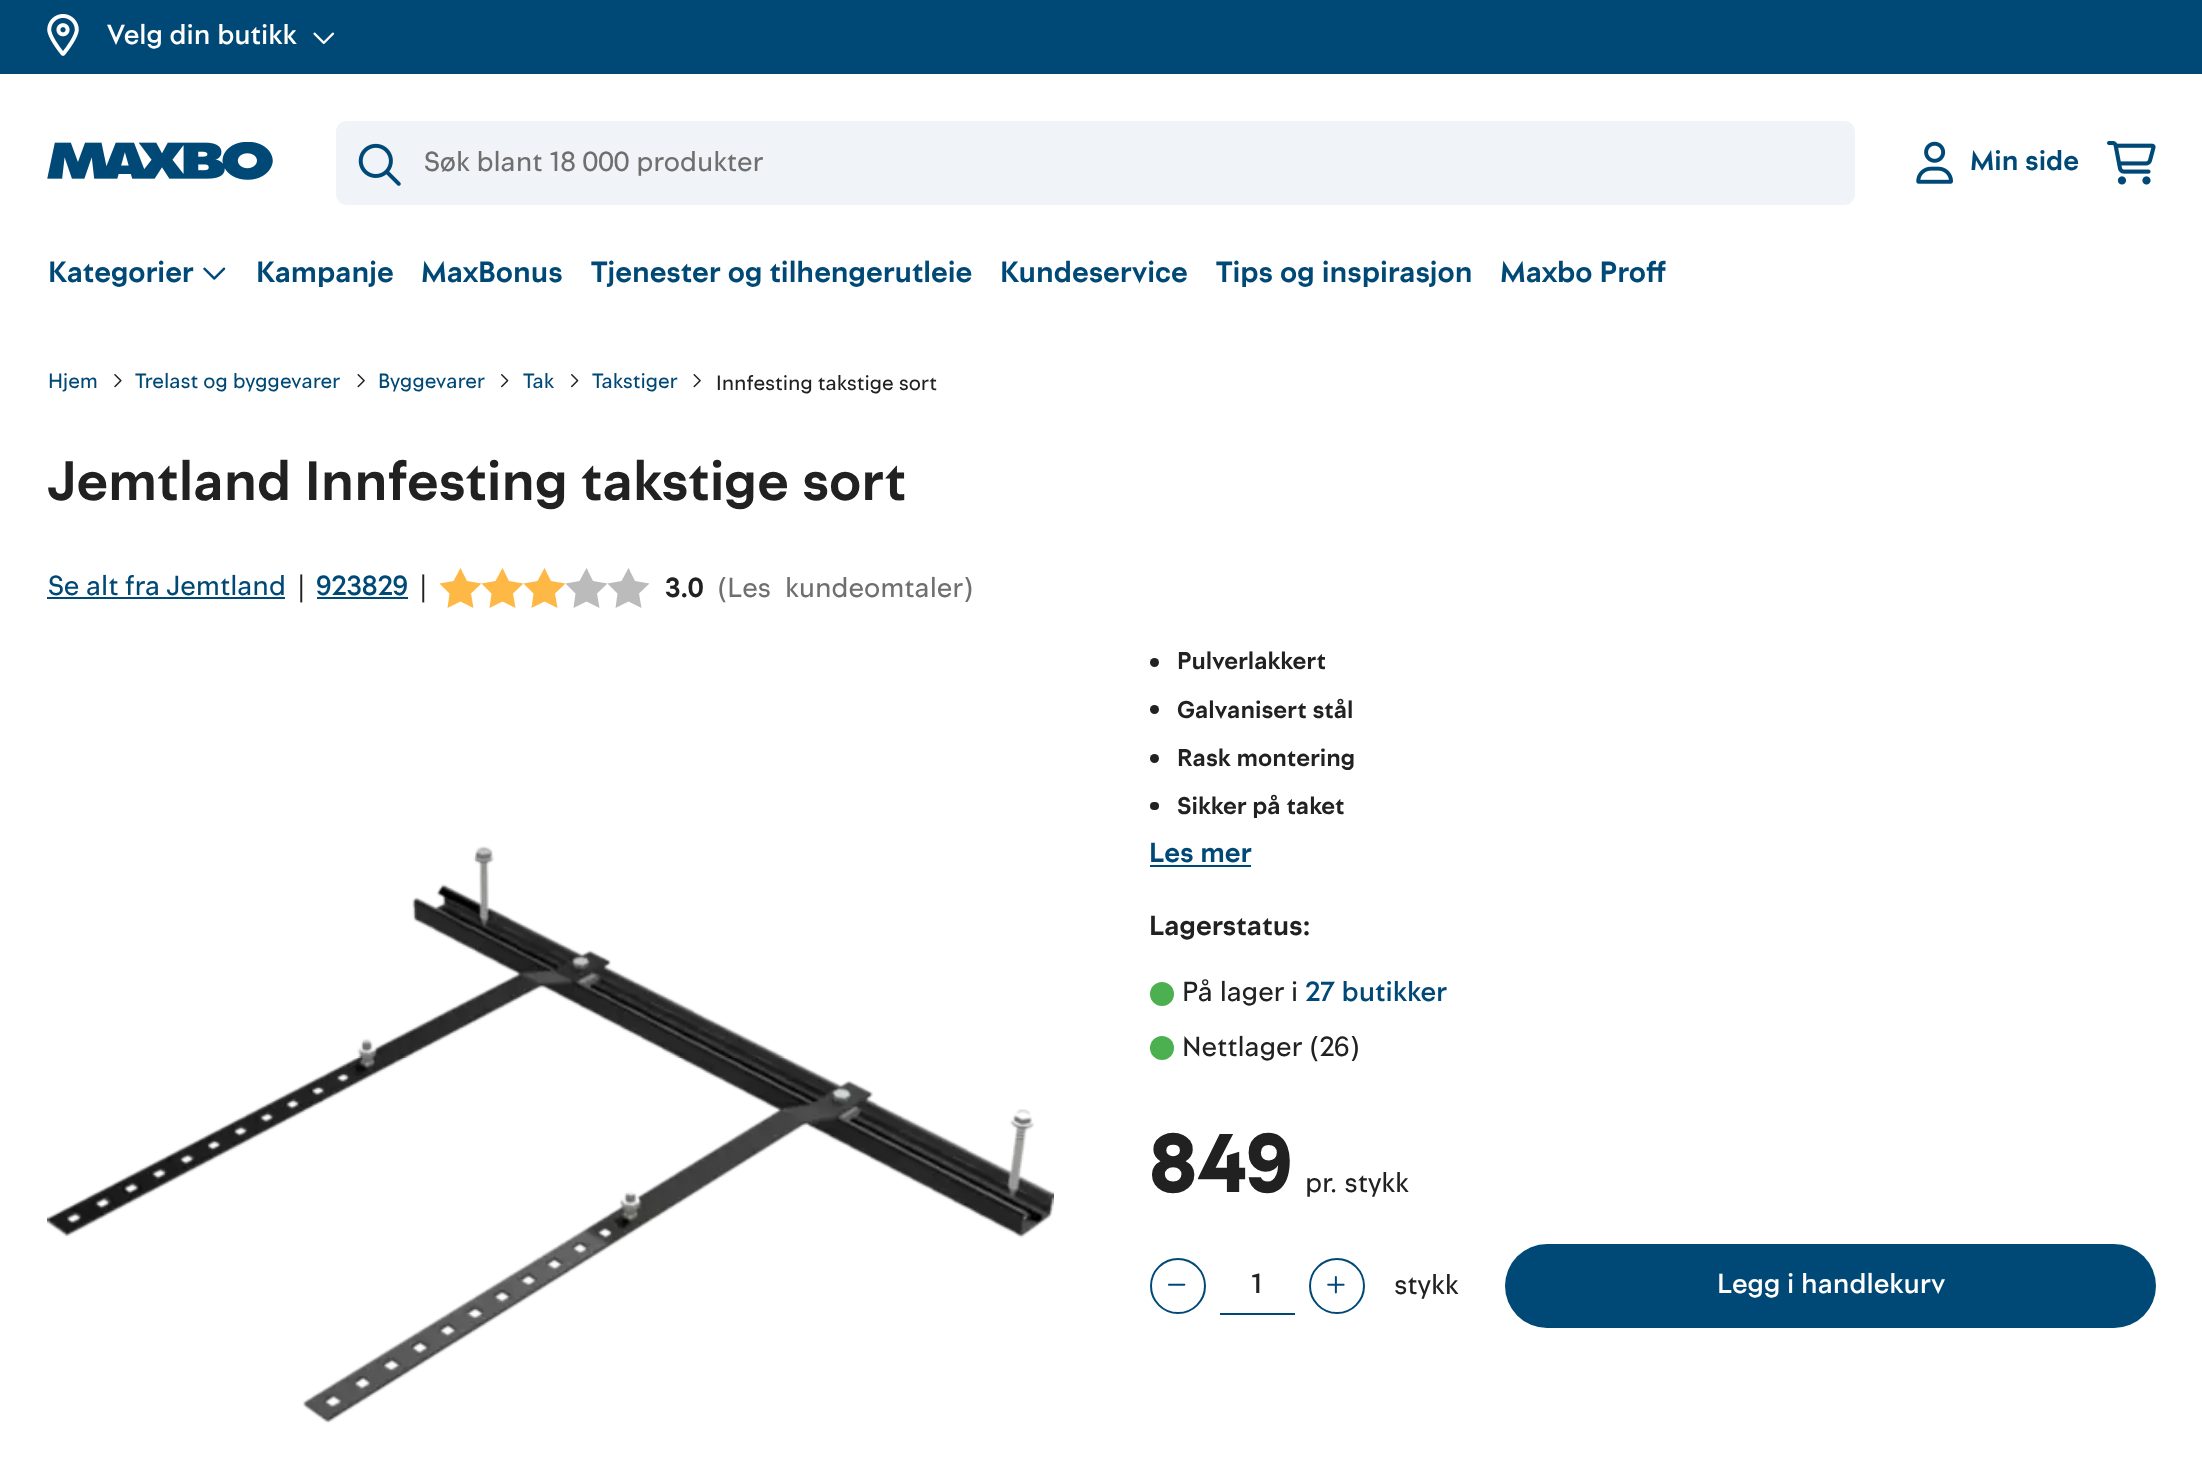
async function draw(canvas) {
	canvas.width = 2202;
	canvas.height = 1464;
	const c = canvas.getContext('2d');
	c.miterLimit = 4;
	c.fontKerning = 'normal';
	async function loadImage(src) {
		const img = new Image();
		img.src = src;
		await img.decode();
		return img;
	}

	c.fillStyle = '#fff';
	c.fillRect(0, 0, 2202, 1464);
	c.fillStyle = '#004976';
	c.fillRect(0, 0, 2202, 74);
	c.drawImage(await loadImage('img1.png'), 47, 14, 32, 42);
	c.font = '500 28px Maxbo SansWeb';
	c.fillStyle = '#fff';
	c.fillText('Velg din butikk', 107, 44);
	c.drawImage(await loadImage('img2.png'), 313, 32, 22, 12);
	c.drawImage(await loadImage('img3.png'), 47, 142, 226, 38);
	c.fillStyle = '#f0f3f7';
	c.beginPath();
	c.roundRect(336, 121, 1519, 84, 11);
	c.fill();
	c.drawImage(await loadImage('img4.png'), 358, 143, 43, 43);
	c.font = '28px Maxbo SansWeb';
	c.fillStyle = '#6f6f6f';
	c.fillText('Søk blant 18 000 produkter', 424, 171);
	c.drawImage(await loadImage('img5.png'), 1916, 141, 37, 43);
	c.font = 'bold 28px Maxbo SansWeb';
	c.fillStyle = '#004976';
	c.fillText('Min side', 1970, 170);
	c.drawImage(await loadImage('img6.png'), 2107, 141, 49, 44);
	c.font = 'bold 29.75px Maxbo SansWeb';
	c.fillText('Kategorier', 48, 282);
	c.drawImage(await loadImage('img7.png'), 203, 267, 23, 13);
	for (const [text, x, y] of [
		['Kampanje', 256, 282],
		['MaxBonus', 421, 282],
		['Tjenester og tilhengerutleie', 591, 282],
		['Kundeservice', 1000, 282],
		['Tips og inspirasjon', 1216, 282],
		['Maxbo Proff', 1500, 282],
	]) {
		c.fillText(text, x, y);
	}
	c.font = '21px Maxbo SansWeb';
	c.fillText('Hjem', 48, 388);
	c.drawImage(await loadImage('img8.png'), 114, 374, 8, 14);
	c.fillText('Trelast og byggevarer', 135, 388);
	c.drawImage(await loadImage('img9.png'), 357, 374, 8, 14);
	c.fillText('Byggevarer', 378, 388);
	c.drawImage(await loadImage('img10.png'), 501, 374, 8, 14);
	c.fillText('Tak', 523, 388);
	c.drawImage(await loadImage('img10.png'), 571, 374, 8, 14);
	c.fillText('Takstiger', 592, 388);
	c.drawImage(await loadImage('img9.png'), 693, 374, 8, 14);
	c.fillStyle = '#212121';
	c.fillText('Innfesting takstige sort', 716, 390);
	c.font = 'bold 56px Maxbo SansWeb';
	c.fillText('Jemtland Innfesting takstige sort', 48, 500);
	c.font = '28px Maxbo SansWeb';
	c.fillStyle = '#004976';
	c.fillText('Se alt fra Jemtland', 48, 595);
	c.fillRect(47, 597, 238, 2);
	c.fillStyle = '#212121';
	c.fillText('|', 297, 596);
	c.font = '500 28px Maxbo SansWeb';
	c.fillStyle = '#004976';
	c.fillText('923829', 316, 595);
	c.fillRect(317, 597, 91, 2);
	c.font = '28px Maxbo SansWeb';
	c.fillStyle = '#212121';
	c.fillText('|', 419, 596);
	c.fillStyle = '#feb846';
	c.beginPath();
	c.moveTo(461.5, 570.5);
	c.lineTo(461.5, 602);
	c.lineTo(460.5, 601.5);
	c.lineTo(447.5, 608);
	c.lineTo(449.5, 593.5);
	c.lineTo(439.5, 583.5);
	c.lineTo(453.5, 581);
	c.lineTo(460.5, 568);
	c.closePath();
	c.fill('evenodd');
	c.beginPath();
	c.moveTo(460.5, 568);
	c.lineTo(467, 581);
	c.lineTo(481.5, 583.5);
	c.lineTo(471, 593.5);
	c.lineTo(473.5, 608);
	c.lineTo(460.5, 601.5);
	c.closePath();
	c.moveTo(503.5, 570.5);
	c.lineTo(503.5, 602);
	c.lineTo(502.5, 601.5);
	c.lineTo(489.5, 608);
	c.lineTo(491.5, 593.5);
	c.lineTo(481.5, 583.5);
	c.lineTo(495.5, 581);
	c.lineTo(502.5, 568);
	c.closePath();
	c.fill('evenodd');
	c.beginPath();
	c.moveTo(502.5, 568);
	c.lineTo(509, 581);
	c.lineTo(523.5, 583.5);
	c.lineTo(513, 593.5);
	c.lineTo(515.5, 608);
	c.lineTo(502.5, 601.5);
	c.closePath();
	c.moveTo(545.5, 570.5);
	c.lineTo(545.5, 602);
	c.lineTo(544.5, 601.5);
	c.lineTo(531.5, 608);
	c.lineTo(533.5, 593.5);
	c.lineTo(523.5, 583.5);
	c.lineTo(537.5, 581);
	c.lineTo(544.5, 568);
	c.closePath();
	c.fill('evenodd');
	c.beginPath();
	c.moveTo(544.5, 568);
	c.lineTo(551, 581);
	c.lineTo(565.5, 583.5);
	c.lineTo(555, 593.5);
	c.lineTo(557.5, 608);
	c.lineTo(544.5, 601.5);
	c.closePath();
	c.fill('evenodd');
	c.fillStyle = '#bbb';
	c.beginPath();
	c.moveTo(587.5, 570.5);
	c.lineTo(587.5, 602);
	c.lineTo(586.5, 601.5);
	c.lineTo(573.5, 608);
	c.lineTo(575.5, 593.5);
	c.lineTo(565.5, 583.5);
	c.lineTo(579.5, 581);
	c.lineTo(586.5, 568);
	c.closePath();
	c.fill('evenodd');
	c.beginPath();
	c.moveTo(586.5, 568);
	c.lineTo(593, 581);
	c.lineTo(607.5, 583.5);
	c.lineTo(597, 593.5);
	c.lineTo(599.5, 608);
	c.lineTo(586.5, 601.5);
	c.closePath();
	c.moveTo(629.5, 570.5);
	c.lineTo(629.5, 602);
	c.lineTo(628.5, 601.5);
	c.lineTo(615.5, 608);
	c.lineTo(617.5, 593.5);
	c.lineTo(607.5, 583.5);
	c.lineTo(621.5, 581);
	c.lineTo(628.5, 568);
	c.closePath();
	c.fill('evenodd');
	c.beginPath();
	c.moveTo(628.5, 568);
	c.lineTo(635, 581);
	c.lineTo(649.5, 583.5);
	c.lineTo(639, 593.5);
	c.lineTo(641.5, 608);
	c.lineTo(628.5, 601.5);
	c.closePath();
	c.fill('evenodd');
	c.font = 'bold 28px Maxbo SansWeb';
	c.fillStyle = '#212121';
	c.fillText('3.0', 665, 597);
	c.font = '28px Maxbo SansWeb';
	c.fillStyle = '#6f6f6f';
	c.fillText('(Les', 717, 597);
	c.fillText('kundeomtaler)', 785, 597);
	c.drawImage(await loadImage('img11.png'), 47, 846, 1007, 578);
	c.fillStyle = '#212121';
	c.beginPath();
	c.arc(1154.5, 662.5, 4.5, 0, 2 * Math.PI);
	c.fill();
	c.font = 'bold 24.5px Maxbo SansWeb';
	c.fillText('Pulverlakkert', 1177, 669);
	c.beginPath();
	c.arc(1154.5, 709.5, 4.5, 0, 2 * Math.PI);
	c.fill();
	c.fillText('Galvanisert stål', 1177, 718);
	c.beginPath();
	c.arc(1154.5, 758.5, 4.5, 0, 2 * Math.PI);
	c.fill();
	c.fillText('Rask montering', 1177, 766);
	c.beginPath();
	c.roundRect(1150, 802, 9, 8, 4);
	c.fill();
	c.fillText('Sikker på taket', 1177, 814);
	c.font = 'bold 28px Maxbo SansWeb';
	c.fillStyle = '#004976';
	c.fillText('Les mer', 1149, 862);
	c.fillRect(1150, 865, 101, 2);
	c.fillStyle = '#212121';
	c.fillText('Lagerstatus:', 1149, 935);
	c.fillStyle = '#4caf50';
	c.beginPath();
	c.arc(1162, 994, 12, 0, 2 * Math.PI);
	c.fill();
	c.font = '28px Maxbo SansWeb';
	c.fillStyle = '#212121';
	c.fillText('På lager i', 1182, 1001);
	c.font = '500 28px Maxbo SansWeb';
	c.fillStyle = '#004976';
	c.fillText('27 butikker', 1305, 1001);
	c.fillStyle = '#4caf50';
	c.beginPath();
	c.arc(1162, 1048, 12, 0, 2 * Math.PI);
	c.fill();
	c.font = '28px Maxbo SansWeb';
	c.fillStyle = '#212121';
	c.fillText('Nettlager (26)', 1182, 1056);
	c.font = '900 84px Maxbo SansWeb';
	c.fillText('849', 1149, 1192);
	c.font = '28px Maxbo SansWeb';
	c.fillText('pr. stykk', 1305, 1192);
	c.beginPath();
	c.arc(1178, 1286, 27, 0, 2 * Math.PI);
	c.strokeStyle = '#004976';
	c.lineWidth = 2;
	c.stroke();
	c.drawImage(await loadImage('img12.png'), 1167, 1283, 19, 3);
	c.fillStyle = '#004976';
	c.fillRect(1220, 1313, 75, 2);
	c.font = '500 28px Maxbo SansWeb';
	c.fillStyle = '#212121';
	c.fillText('1', 1251, 1293);
	c.beginPath();
	c.arc(1337, 1286, 27, 0, 2 * Math.PI);
	c.stroke();
	c.drawImage(await loadImage('img13.png'), 1327, 1276, 18, 18);
	c.font = '28px Maxbo SansWeb';
	c.fillText('stykk', 1394, 1294);
	c.fillStyle = '#004976';
	c.beginPath();
	c.roundRect(1505, 1244, 651, 84, 42);
	c.fill();
	c.font = '500 28px Maxbo SansWeb';
	c.fillStyle = '#fff';
	c.fillText('Legg i handlekurv', 1717, 1293);
}

draw(document.querySelector('canvas'));
